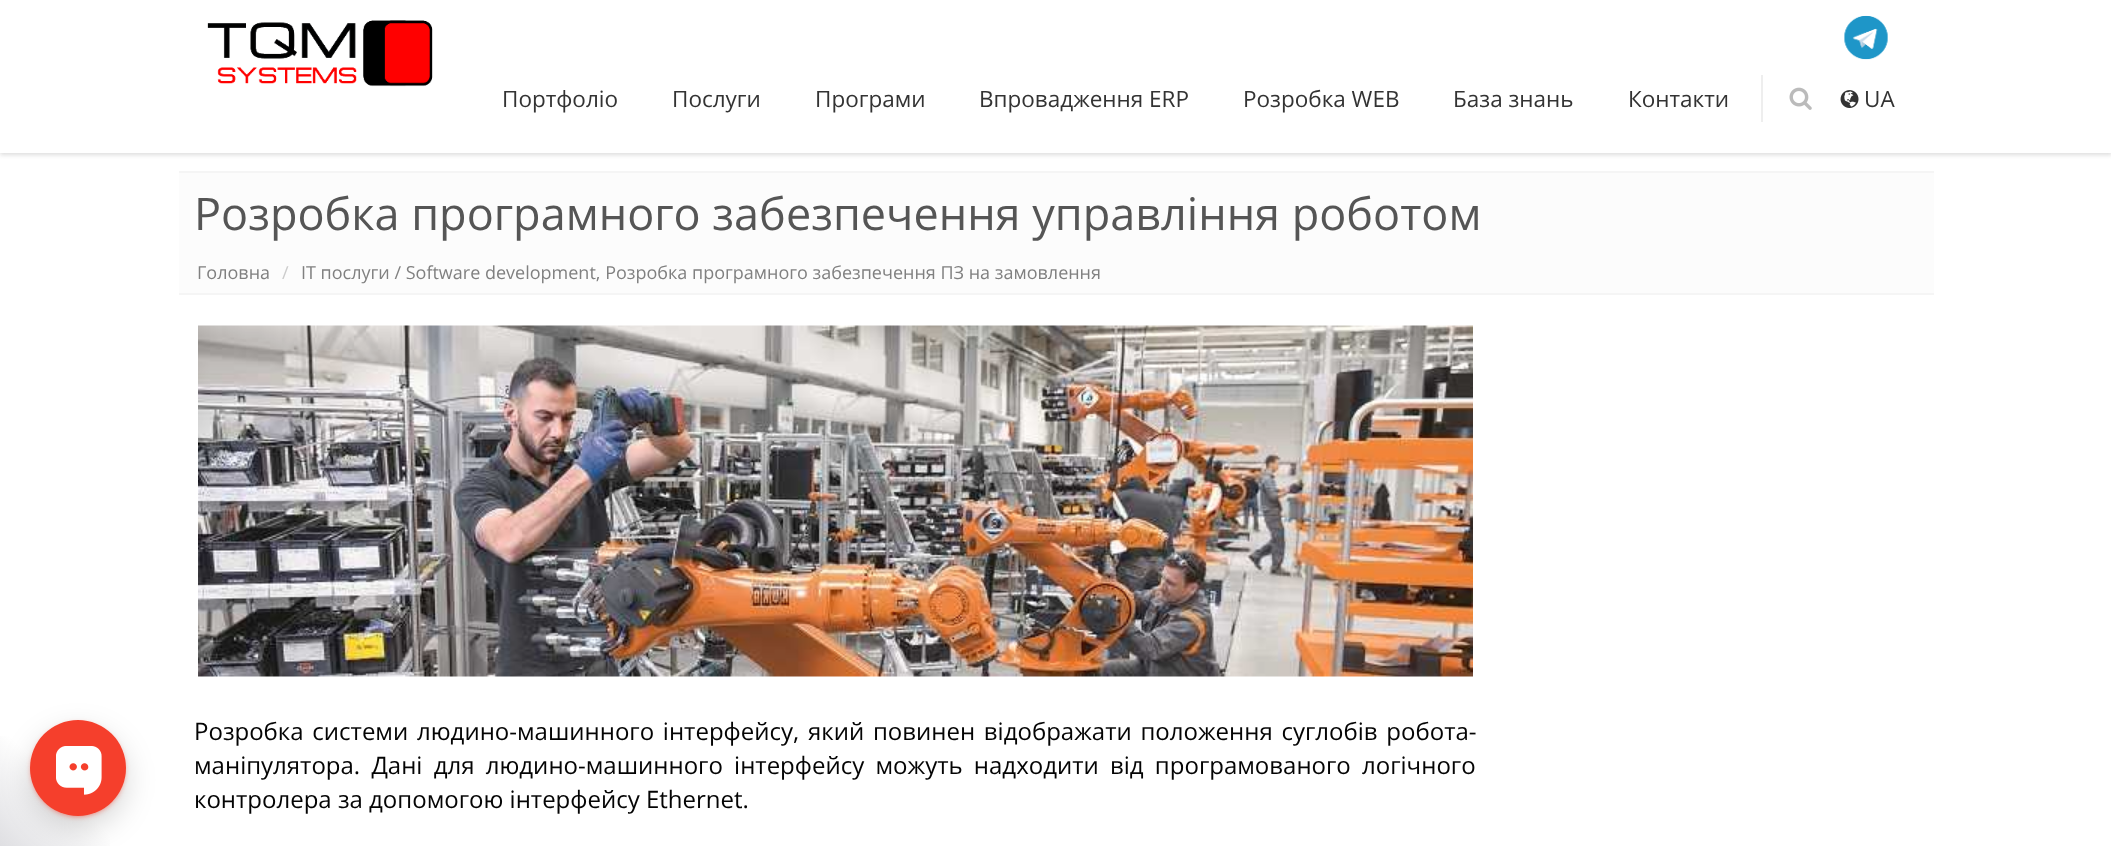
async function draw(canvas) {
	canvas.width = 2111;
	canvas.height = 846;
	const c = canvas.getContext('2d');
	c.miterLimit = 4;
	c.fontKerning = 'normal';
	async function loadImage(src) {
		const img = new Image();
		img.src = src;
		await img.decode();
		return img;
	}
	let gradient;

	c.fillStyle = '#fff';
	c.fillRect(0, 0, 2111, 846);
	c.save();
	c.beginPath();
	c.rect(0, 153, 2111, 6);
	c.clip();
	c.fillStyle = '#ddd';
	c.filter = 'blur(2px)';
	c.beginPath();
	c.rect(0, 2, 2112, 153);
	c.fill();
	c.filter = 'none';
	c.restore();
	c.drawImage(await loadImage('img1.png'), 207, 20, 226, 67);
	c.drawImage(await loadImage('img2.png'), 1844, 15, 44, 45);
	c.font = '22.5px Open Sans';
	c.fillStyle = '#333';
	for (const [text, x, y] of [
		['Портфоліо', 502, 107],
		['Послуги', 672, 107],
		['Програми', 815, 107],
		['Впровадження ERP', 979, 107],
		['Розробка WEB', 1243, 107],
		['База знань', 1453, 107],
		['Контакти', 1628, 107],
	]) {
		c.fillText(text, x, y);
	}
	c.fillStyle = '#eee';
	c.fillRect(1761, 75, 2, 47);
	c.drawImage(await loadImage('img3.png'), 1789, 87, 23, 23);
	c.drawImage(await loadImage('img4.png'), 1840, 90, 19, 18);
	c.fillStyle = '#333';
	c.fillText('UA', 1864, 107);
	gradient = c.createLinearGradient(150, 696, -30, 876);
	gradient.addColorStop(0.5, '#fff');
	gradient.addColorStop(1, '#cfcfd4');
	c.fillStyle = gradient;
	c.fillRect(0, 736, 110, 110);
	c.fillStyle = '#00000029';
	c.filter = 'blur(15px)';
	c.beginPath();
	c.roundRect(30, 732, 96, 96, 48);
	c.fill();
	c.filter = 'none';
	c.fillStyle = '#f53f2c';
	c.filter = 'blur(3px)';
	c.beginPath();
	c.roundRect(33, 725, 90, 90, 45);
	c.fill();
	c.filter = 'none';
	c.beginPath();
	c.arc(78, 768, 48, 0, 2 * Math.PI);
	c.fill();
	c.drawImage(await loadImage('img5.png'), 56, 746, 46, 49);
	for (const [x, y, w, h, color] of [
		[179, 173, 1755, 120, '#fcfcfc'],
		[179, 171, 1755, 2, '#f5f5f5'],
		[179, 293, 1755, 2, '#f5f5f5'],
	]) {
		c.fillStyle = color;
		c.fillRect(x, y, w, h);
	}
	c.font = '45px Open Sans';
	c.fillStyle = '#555';
	c.fillText('Розробка програмного забезпечення управління роботом', 194, 230);
	c.font = '18px Open Sans';
	c.fillStyle = '#808080';
	c.fillText('Головна', 197, 279);
	c.fillStyle = '#ccc';
	c.fillText('/', 282, 279);
	c.fillStyle = '#808080';
	c.fillText('IT послуги / Software development, Розробка програмного забезпечення ПЗ на замовлення', 301, 279);
	c.drawImage(await loadImage('img6.png'), 198, 325, 1275, 352);
	c.wordSpacing = '2.5px';
	c.font = '24px Open Sans';
	c.fillStyle = '#040404';
	c.fillText('Розробка системи людино-машинного інтерфейсу, який повинен відображати положення суглобів робота-', 194, 740);
	c.wordSpacing = '5px';
	c.fillText('маніпулятора. Дані для людино-машинного інтерфейсу можуть надходити від програмованого логічного', 194, 774);
	c.wordSpacing = '0px';
	c.fillText('контролера за допомогою інтерфейсу Ethernet.', 194, 808);
}

draw(document.querySelector('canvas'));
